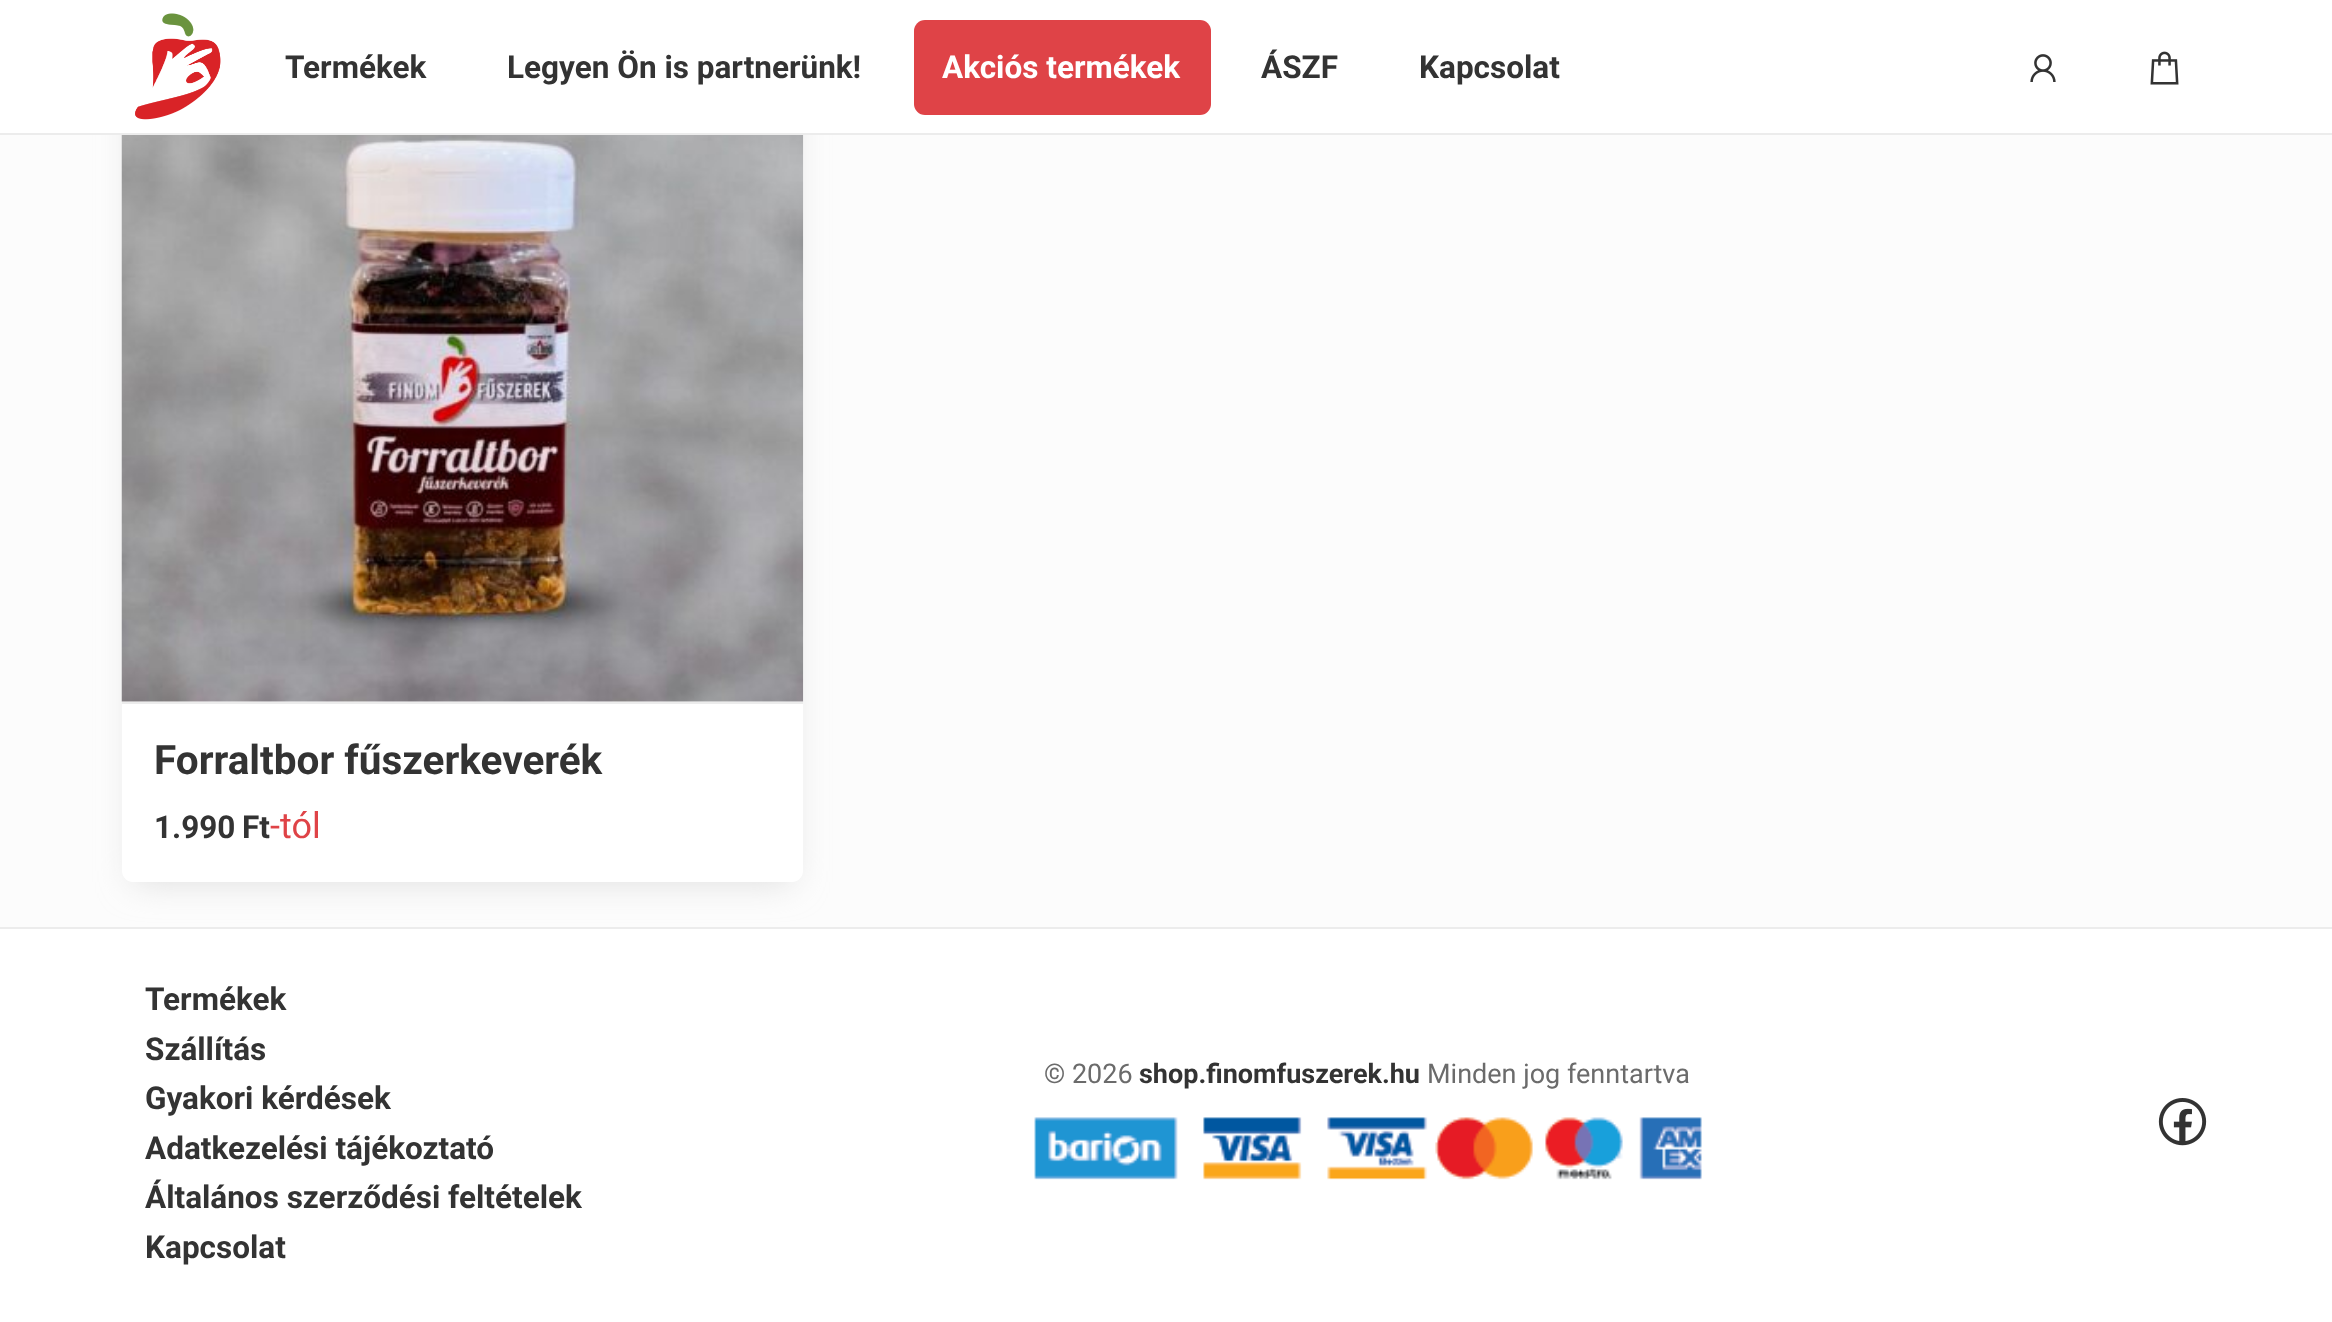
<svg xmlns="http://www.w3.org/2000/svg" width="2332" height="1322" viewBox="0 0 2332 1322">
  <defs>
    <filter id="blur1" x="-50%" y="-200%" width="200%" height="500%"><feGaussianBlur stdDeviation="17"/></filter>
  </defs>
  <rect width="100%" height="100%" fill="#fcfcfc"/>
  <rect x="0" y="929" width="2332" height="393" fill="#ffffff"/>
  <rect x="0" y="927" width="2332" height="2" fill="#ececec"/>
  <rect x="133" y="41" width="659" height="841" fill="#dddddd" filter="url(#blur1)"/>
  <rect x="122" y="18" width="681" height="864" rx="11" fill="#ffffff"/>
  <rect x="0" y="0" width="2332" height="133" fill="#ffffff"/>
  <rect x="0" y="133" width="2332" height="2" fill="#ececec"/>
  <image x="135" y="13" width="86" height="107" href="img1.png"/>
  <text x="285" y="78" font-family="Roboto" font-size="31.5" font-weight="bold" fill="#333333">Termékek</text>
  <text x="507" y="78" font-family="Roboto" font-size="31.5" font-weight="bold" fill="#333333">Legyen Ön is partnerünk!</text>
  <rect x="914" y="20" width="297" height="95" rx="11" fill="#df4347"/>
  <text x="942" y="78" font-family="Roboto" font-size="31.5" font-weight="bold" fill="#ffffff">Akciós termékek</text>
  <text x="1261" y="78" font-family="Roboto" font-size="31.5" font-weight="bold" fill="#333333">ÁSZF</text>
  <text x="1419" y="78" font-family="Roboto" font-size="31.5" font-weight="bold" fill="#333333">Kapcsolat</text>
  <image x="2030" y="54" width="26" height="28" href="img2.png"/>
  <image x="2150" y="51" width="29" height="34" href="img3.png"/>
  <image x="121" y="135" width="683" height="567" href="img4.png"/>
  <rect x="122" y="702" width="681" height="2" fill="#ececec"/>
  <text x="154" y="774" font-family="Roboto" font-size="40.5" font-weight="bold" fill="#333333">Forraltbor fűszerkeverék</text>
  <text x="154" y="838" font-family="Roboto" font-size="31.5" font-weight="bold" fill="#333333">1.990</text>
  <text x="242" y="838" font-family="Roboto" font-size="31.5" font-weight="bold" fill="#333333">Ft</text>
  <text x="270" y="838" font-family="Roboto" font-size="36" fill="#df4347">-tól</text>
  <text x="145" y="1010" font-family="Roboto" font-size="31.5" font-weight="bold" fill="#333333">Termékek</text>
  <text x="145" y="1060" font-family="Roboto" font-size="31.5" font-weight="bold" fill="#333333">Szállítás</text>
  <text x="145" y="1109" font-family="Roboto" font-size="31.5" font-weight="bold" fill="#333333">Gyakori kérdések</text>
  <text x="145" y="1159" font-family="Roboto" font-size="31.5" font-weight="bold" fill="#333333">Adatkezelési tájékoztató</text>
  <text x="145" y="1208" font-family="Roboto" font-size="31.5" font-weight="bold" fill="#333333">Általános szerződési feltételek</text>
  <text x="145" y="1258" font-family="Roboto" font-size="31.5" font-weight="bold" fill="#333333">Kapcsolat</text>
  <text x="1044" y="1083" font-family="Roboto" font-size="27" fill="#6b6b6b">© 2026</text>
  <text x="1139" y="1083" font-family="Roboto" font-size="27" font-weight="bold" fill="#333333">shop.finomfuszerek.hu</text>
  <text x="1427" y="1083" font-family="Roboto" font-size="27" fill="#6b6b6b">Minden jog fenntartva</text>
  <image x="1034" y="1117" width="668" height="63" href="img5.png"/>
  <image x="2158" y="1098" width="49" height="48" href="img6.png"/>
</svg>
